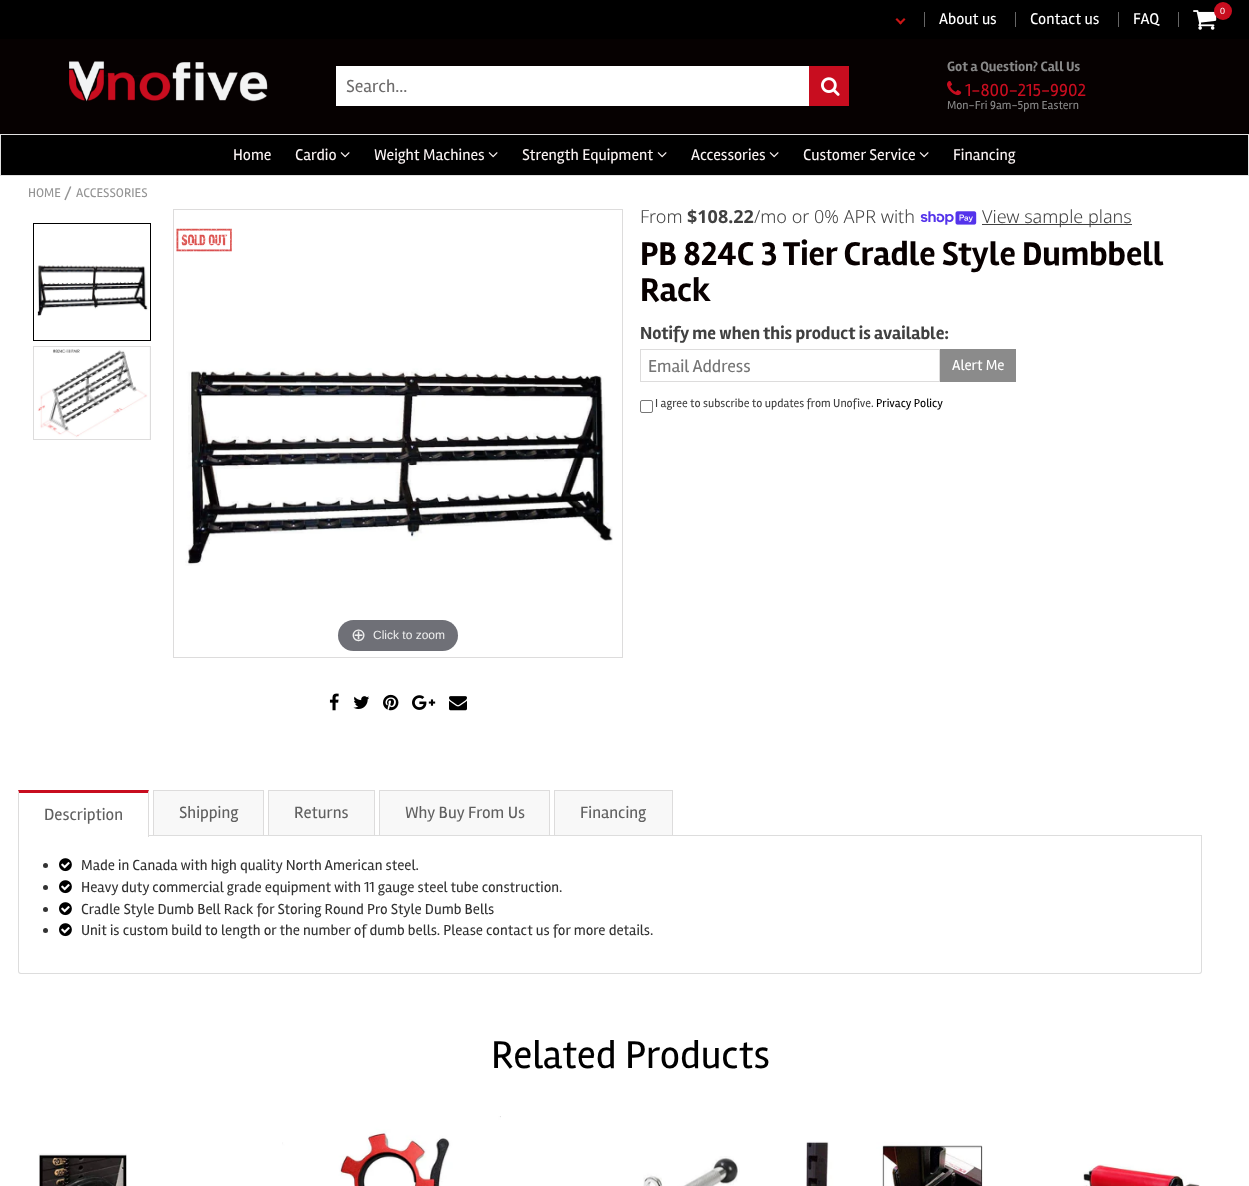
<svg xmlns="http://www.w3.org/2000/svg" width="1249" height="1186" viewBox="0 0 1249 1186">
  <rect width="100%" height="100%" fill="#ffffff"/>
  <rect x="0" y="0" width="1249" height="39" fill="#000000"/>
  <rect x="1178" y="12" width="1" height="15" fill="#666666"/>
  <image x="1193" y="10" width="24" height="20" href="img1.png"/>
  <circle cx="1223" cy="11" r="9" fill="#c80d1f"/>
  <text x="1220" y="14" font-family="Liberation Sans" font-size="9" fill="#ffffff">0</text>
  <path d="M904 18L905.5 19.5L900.5 24.5L899 23Z" fill="#ca1616"/>
  <path d="M897 18L902 23L900.5 24.5L895.5 19.5Z" fill="#ca1616"/>
  <rect x="924" y="12" width="1" height="15" fill="#666666"/>
  <text x="939" y="24" font-family="Rambla" font-size="16" fill="#ffffff">About us</text>
  <rect x="1015" y="12" width="1" height="15" fill="#666666"/>
  <text x="1030" y="24" font-family="Rambla" font-size="16" fill="#ffffff">Contact us</text>
  <rect x="1118" y="12" width="1" height="15" fill="#666666"/>
  <text x="1133" y="24" font-family="Rambla" font-size="16" fill="#ffffff">FAQ</text>
  <rect x="0" y="39" width="1249" height="95" fill="#060101"/>
  <image x="69" y="61" width="199" height="41" href="img2.png"/>
  <rect x="336" y="66" width="473" height="40" fill="#ffffff"/>
  <text x="346" y="92" font-family="Rambla" font-size="18" fill="#6e6c6c">Search...</text>
  <rect x="809" y="66" width="40" height="40" fill="#c80d1f"/>
  <image x="821" y="77" width="19" height="19" href="img3.png"/>
  <text x="947" y="71" font-family="Rambla" font-size="14" font-weight="bold" fill="#888888">Got a Question? Call Us</text>
  <image x="947" y="81" width="15" height="15" href="img4.png"/>
  <text x="965" y="96" font-family="Rambla" font-size="18" fill="#c80d1f">1-800-215-9902</text>
  <text x="947" y="109" font-family="Rambla" font-size="12" fill="#888888">Mon-Fri 9am-5pm Eastern</text>
  <rect x="0.5" y="134.5" width="1248" height="41" fill="#000000" stroke="#e1e1e1"/>
  <text x="233" y="160" font-family="Rambla" font-size="16" fill="#faf3f3">Home</text>
  <text x="295" y="160" font-family="Rambla" font-size="16" fill="#faf3f3">Cardio</text>
  <image x="340" y="152" width="10" height="6" href="img5.png"/>
  <text x="374" y="160" font-family="Rambla" font-size="16" fill="#faf3f3">Weight Machines</text>
  <image x="488" y="152" width="10" height="6" href="img5.png"/>
  <text x="522" y="160" font-family="Rambla" font-size="16" fill="#faf3f3">Strength Equipment</text>
  <image x="657" y="152" width="10" height="6" href="img5.png"/>
  <text x="691" y="160" font-family="Rambla" font-size="16" fill="#faf3f3">Accessories</text>
  <image x="769" y="152" width="10" height="6" href="img5.png"/>
  <text x="803" y="160" font-family="Rambla" font-size="16" fill="#faf3f3">Customer Service</text>
  <image x="919" y="152" width="10" height="6" href="img5.png"/>
  <text x="953" y="160" font-family="Rambla" font-size="16" fill="#faf3f3">Financing</text>
  <text x="28" y="197" font-family="Rambla" font-size="13" fill="#949494">HOME</text>
  <text x="64" y="199" font-family="Rambla" font-size="18" fill="#949494">/</text>
  <text x="76" y="197" font-family="Rambla" font-size="13" fill="#949494">ACCESSORIES</text>
  <text x="640" y="223" font-family="Noto Sans" font-size="18" font-weight="300" fill="#414141">From</text>
  <text x="687" y="223" font-family="Noto Sans" font-size="18" font-weight="bold" fill="#414141">$108.22</text>
  <text x="754" y="223" font-family="Noto Sans" font-size="18" font-weight="300" fill="#414141">/mo or 0% APR with</text>
  <image x="920" y="211" width="57" height="14" href="img6.png"/>
  <rect x="982" y="224" width="150" height="1" fill="#414141"/>
  <text x="982" y="223" font-family="Noto Sans" font-size="18" font-weight="300" fill="#414141">View sample plans</text>
  <text x="640" y="265" font-family="Rambla" font-size="34" font-weight="bold" fill="#080000">PB 824C 3 Tier Cradle Style Dumbbell</text>
  <text x="640" y="301" font-family="Rambla" font-size="34" font-weight="bold" fill="#080000">Rack</text>
  <text x="640" y="339" font-family="Rambla" font-size="18" font-weight="bold" fill="#414141">Notify me when this product is available:</text>
  <rect x="640.5" y="349.5" width="299" height="32" fill="none" stroke="#dddcdc"/>
  <text x="648" y="372" font-family="Rambla" font-size="18" fill="#757575">Email Address</text>
  <rect x="940" y="349" width="76" height="33" fill="#8b8b8b"/>
  <text x="952" y="370" font-family="Rambla" font-size="15" fill="#ffffff">Alert Me</text>
  <rect x="640.5" y="400.5" width="12" height="12" rx="1.5" fill="none" stroke="#767676"/>
  <text x="655" y="407" font-family="Rambla" font-size="12" fill="#414141">I agree to subscribe to updates from Unofive.</text>
  <text x="876" y="407" font-family="Rambla" font-size="12" fill="#000000">Privacy Policy</text>
  <rect x="33.5" y="223.5" width="117" height="117" fill="none" stroke="#000000"/>
  <image x="34" y="224" width="116" height="116" href="img7.png"/>
  <rect x="149" y="347" width="1" height="92" fill="#fafafa"/>
  <rect x="33.5" y="346.5" width="117" height="93" fill="none" stroke="#dddcdc"/>
  <image x="34" y="347" width="115" height="92" href="img8.png"/>
  <rect x="173.5" y="209.5" width="449" height="448" fill="none" stroke="#dddcdc"/>
  <image x="176" y="228" width="56" height="24" href="img9.png"/>
  <image x="185" y="368" width="428" height="198" href="img10.png"/>
  <rect x="338" y="620" width="120" height="31" rx="15.5" fill="#6f7077"/>
  <text x="351" y="641" font-family="DejaVu Sans" font-size="18" fill="#eeeeee">⊕</text>
  <text x="373" y="639" font-family="Liberation Sans" font-size="12" fill="#eeeeee">Click to zoom</text>
  <image x="329" y="693" width="10" height="18" href="img11.png"/>
  <image x="353" y="696" width="17" height="13" href="img12.png"/>
  <image x="383" y="694" width="16" height="17" href="img13.png"/>
  <image x="412" y="695" width="24" height="15" href="img14.png"/>
  <image x="449" y="696" width="18" height="15" href="img15.png"/>
  <rect x="149" y="835" width="1053" height="1" fill="#dddddd"/>
  <path d="M18 836H1202V971C1202 973 1201 974 1199 974H21C19 974 18 973 18 971ZM19 836H1201V971C1201 972 1200 973 1199 973H21C20 973 19 972 19 971Z" fill="#dddddd" fill-rule="evenodd"/>
  <rect x="18" y="836" width="1" height="1" fill="#ffffff"/>
  <path d="M18 790H149L148 793H19Z" fill="#c80d1f"/>
  <path d="M149 790V837H148V793Z" fill="#dddcdc"/>
  <path d="M18 837V790L19 793V837Z" fill="#dddcdc"/>
  <text x="44" y="820" font-family="Rambla" font-size="17" fill="#606060">Description</text>
  <rect x="154" y="791" width="109" height="44" fill="#f8f8f8"/>
  <rect x="153" y="790" width="111" height="1" fill="#dddcdc"/>
  <rect x="263" y="790" width="1" height="45" fill="#dddcdc"/>
  <rect x="153" y="790" width="1" height="45" fill="#dddcdc"/>
  <text x="179" y="818" font-family="Rambla" font-size="17" fill="#606060">Shipping</text>
  <rect x="269" y="791" width="105" height="44" fill="#f8f8f8"/>
  <rect x="268" y="790" width="107" height="1" fill="#dddcdc"/>
  <rect x="374" y="790" width="1" height="45" fill="#dddcdc"/>
  <rect x="268" y="790" width="1" height="45" fill="#dddcdc"/>
  <text x="294" y="818" font-family="Rambla" font-size="17" fill="#606060">Returns</text>
  <rect x="380" y="791" width="169" height="44" fill="#f8f8f8"/>
  <rect x="379" y="790" width="171" height="1" fill="#dddcdc"/>
  <rect x="549" y="790" width="1" height="45" fill="#dddcdc"/>
  <rect x="379" y="790" width="1" height="45" fill="#dddcdc"/>
  <text x="405" y="818" font-family="Rambla" font-size="17" fill="#606060">Why Buy From Us</text>
  <rect x="555" y="791" width="117" height="44" fill="#f8f8f8"/>
  <rect x="554" y="790" width="119" height="1" fill="#dddcdc"/>
  <rect x="672" y="790" width="1" height="45" fill="#dddcdc"/>
  <rect x="554" y="790" width="1" height="45" fill="#dddcdc"/>
  <text x="580" y="818" font-family="Rambla" font-size="17" fill="#606060">Financing</text>
  <circle cx="45.5" cy="865.5" r="2.5" fill="#333333"/>
  <image x="59" y="858" width="13" height="14" href="img16.png"/>
  <text x="81" y="870" font-family="Rambla" font-size="15" fill="#333333">Made in Canada with high quality North American steel.</text>
  <circle cx="45.5" cy="887.5" r="2.5" fill="#333333"/>
  <image x="59" y="880" width="13" height="14" href="img16.png"/>
  <text x="81" y="892" font-family="Rambla" font-size="15" fill="#333333">Heavy duty commercial grade equipment with 11 gauge steel tube construction.</text>
  <circle cx="45.5" cy="909.5" r="2.5" fill="#333333"/>
  <image x="59" y="902" width="13" height="14" href="img16.png"/>
  <text x="81" y="914" font-family="Rambla" font-size="15" fill="#333333">Cradle Style Dumb Bell Rack for Storing Round Pro Style Dumb Bells</text>
  <circle cx="45.5" cy="930.5" r="2.5" fill="#333333"/>
  <image x="59" y="923" width="13" height="14" href="img16.png"/>
  <text x="81" y="935" font-family="Rambla" font-size="15" fill="#333333">Unit is custom build to length or the number of dumb bells. Please contact us for more details.</text>
  <text x="491" y="1068" font-family="Rambla" font-size="40" fill="#000000">Related Products</text>
  <image x="38" y="1153" width="89" height="33" href="img17.png"/>
  <image x="282" y="1116" width="219" height="70" href="img18.png"/>
  <image x="643" y="1156" width="97" height="30" href="img19.png"/>
  <image x="806" y="1141" width="177" height="45" href="img20.png"/>
  <image x="1083" y="1164" width="117" height="22" href="img21.png"/>
</svg>
